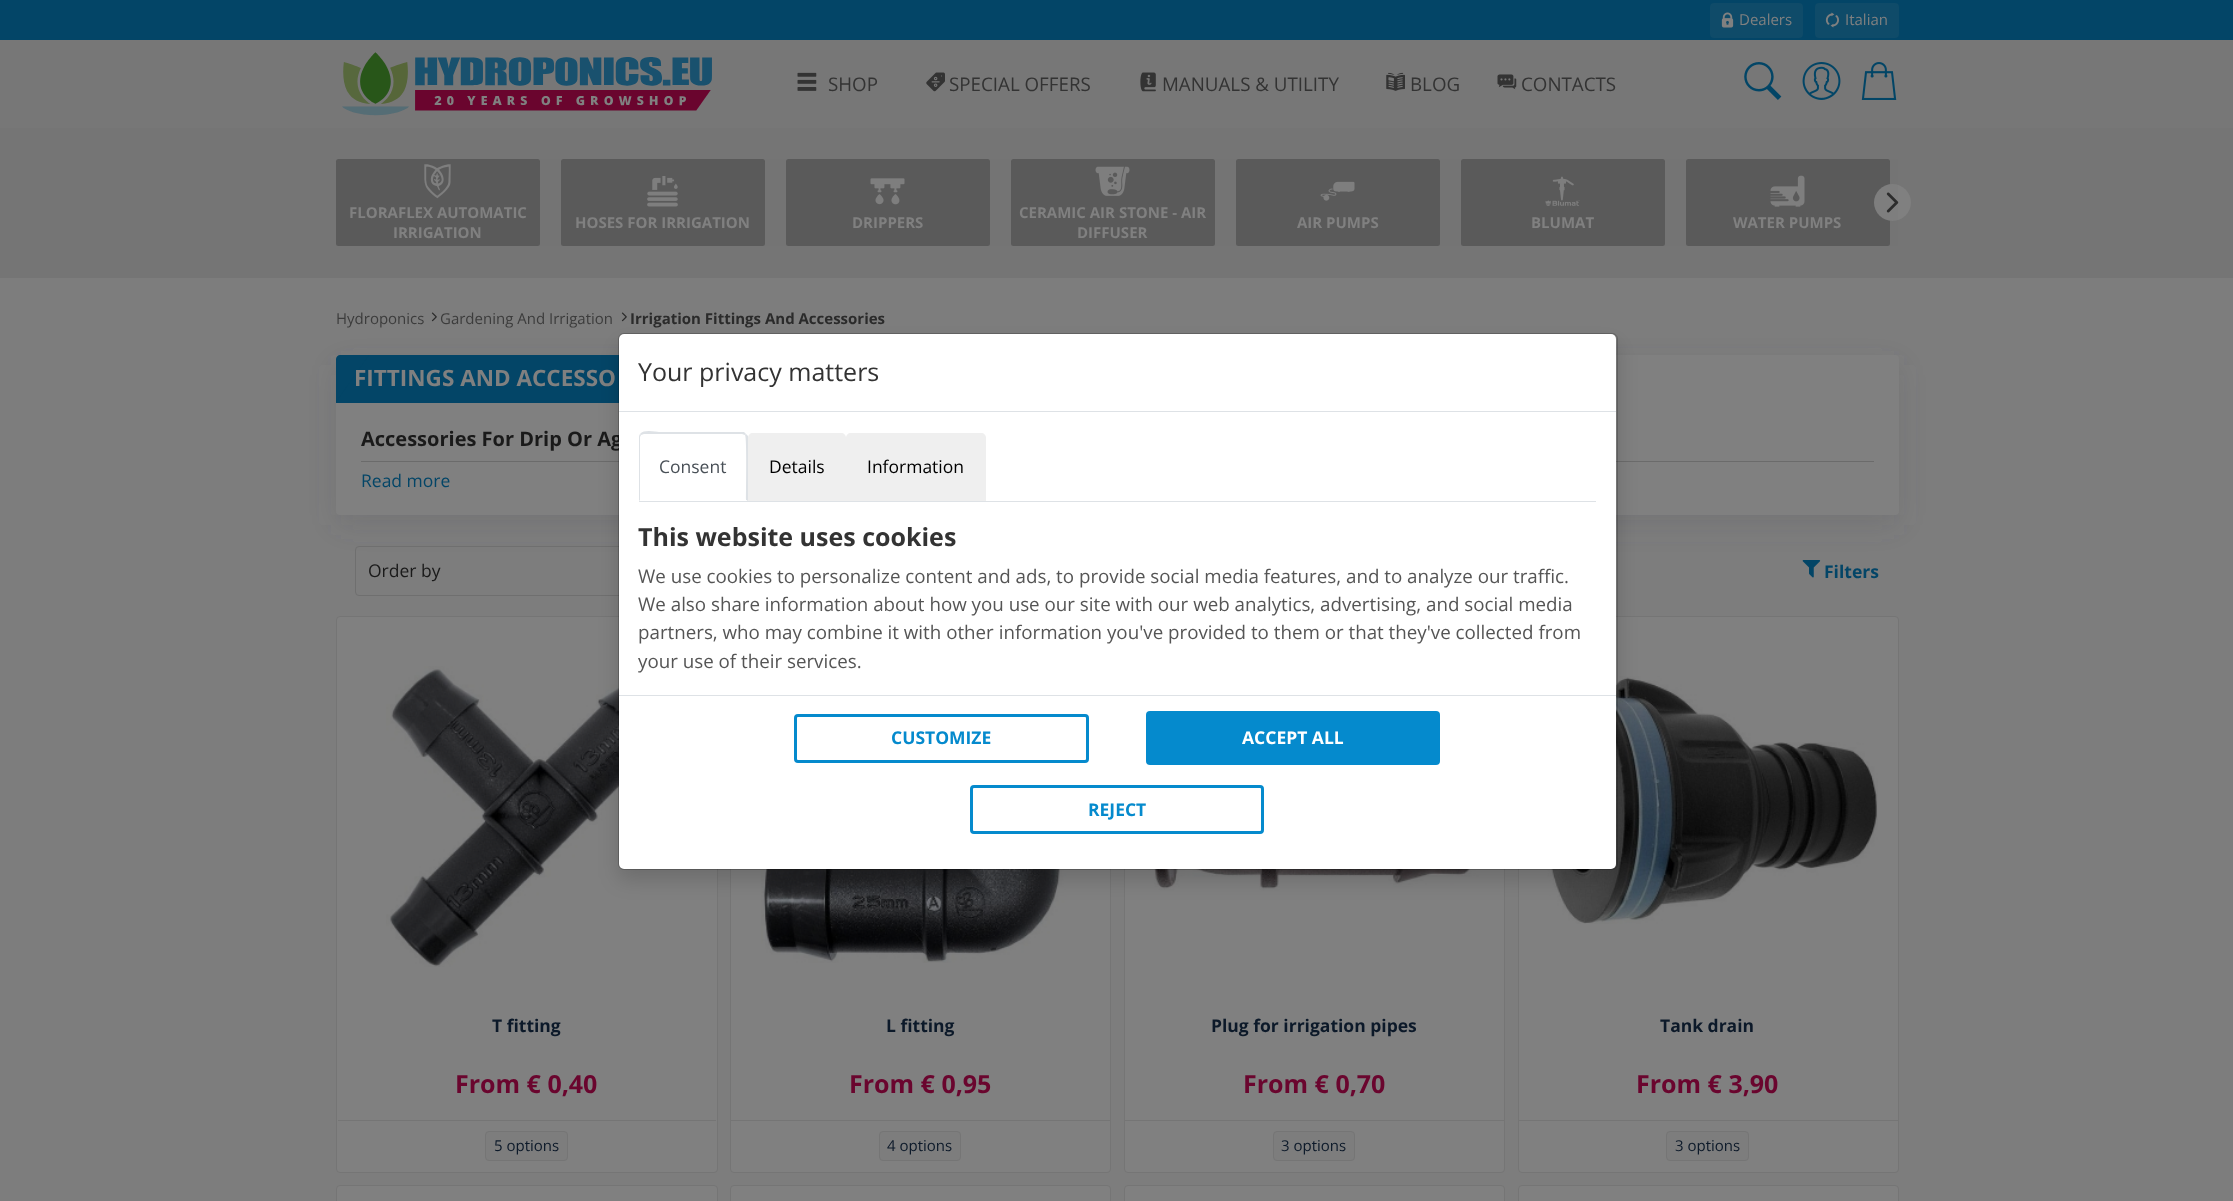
<svg xmlns="http://www.w3.org/2000/svg" width="2233" height="1201" viewBox="0 0 2233 1201">
  <defs>
    <filter id="blur1" x="-50%" y="-200%" width="200%" height="500%"><feGaussianBlur stdDeviation="15"/></filter>
    <filter id="blur2" x="-50%" y="-200%" width="200%" height="500%"><feGaussianBlur stdDeviation="10"/></filter>
  </defs>
  <rect width="100%" height="100%" fill="#7d7d7d"/>
  <rect x="0" y="0" width="2233" height="40" fill="#034567"/>
  <rect x="1710" y="3" width="93" height="35" rx="4" fill="#0f4b69"/>
  <image x="1721" y="12" width="13" height="16" href="img1.png"/>
  <text x="1739" y="25" font-family="Open Sans" font-size="15" fill="#808080">Dealers</text>
  <rect x="1815" y="3" width="84" height="35" rx="4" fill="#0f4b69"/>
  <image x="1825" y="12" width="14" height="16" href="img2.png"/>
  <text x="1845" y="25" font-family="Open Sans" font-size="15" fill="#808080">Italian</text>
  <rect x="0" y="40" width="2233" height="88" fill="#777777"/>
  <image x="342" y="52" width="370" height="64" href="img3.png"/>
  <image x="797" y="72" width="20" height="19" href="img4.png"/>
  <text x="828" y="91" font-family="Open Sans" font-size="18.75" fill="#333333">SHOP</text>
  <image x="926" y="72" width="19" height="20" href="img5.png"/>
  <text x="949" y="91" font-family="Open Sans" font-size="18.75" fill="#333333">SPECIAL OFFERS</text>
  <image x="1140" y="72" width="16" height="20" href="img6.png"/>
  <text x="1162" y="91" font-family="Open Sans" font-size="18.75" fill="#333333">MANUALS &amp; UTILITY</text>
  <image x="1386" y="72" width="19" height="19" href="img7.png"/>
  <text x="1410" y="91" font-family="Open Sans" font-size="18.75" fill="#333333">BLOG</text>
  <image x="1497" y="74" width="20" height="16" href="img8.png"/>
  <text x="1521" y="91" font-family="Open Sans" font-size="18.75" fill="#333333">CONTACTS</text>
  <image x="1744" y="62" width="38" height="38" href="img9.png"/>
  <image x="1802" y="62" width="39" height="38" href="img10.png"/>
  <image x="1861" y="62" width="36" height="38" href="img11.png"/>
  <rect x="0" y="128" width="2233" height="150" fill="#757575"/>
  <rect x="336" y="159" width="204" height="87" rx="2.5" fill="#575757"/>
  <image x="424" y="164" width="27" height="35" href="img12.png"/>
  <rect x="561" y="159" width="204" height="87" rx="2.5" fill="#575757"/>
  <image x="647" y="176" width="31" height="31" href="img13.png"/>
  <rect x="786" y="159" width="204" height="87" rx="2.5" fill="#575757"/>
  <image x="870" y="178" width="35" height="27" href="img14.png"/>
  <rect x="1011" y="159" width="204" height="87" rx="2.5" fill="#575757"/>
  <image x="1095" y="166" width="35" height="30" href="img15.png"/>
  <rect x="1236" y="159" width="204" height="87" rx="2.5" fill="#575757"/>
  <image x="1320" y="181" width="35" height="20" href="img16.png"/>
  <rect x="1461" y="159" width="204" height="87" rx="2.5" fill="#575757"/>
  <image x="1545" y="176" width="35" height="30" href="img17.png"/>
  <rect x="1686" y="159" width="204" height="87" rx="2.5" fill="#575757"/>
  <image x="1770" y="175" width="35" height="32" href="img18.png"/>
  <circle cx="1892.5" cy="202.5" r="18.5" fill="#808080"/>
  <image x="1886" y="192" width="13" height="21" href="img19.png"/>
  <rect x="336" y="159" width="1562" height="87" fill="#757575" fill-opacity="0.13"/>
  <text x="349" y="218" font-family="Open Sans" font-size="15" font-weight="bold" fill="#808080">FLORAFLEX AUTOMATIC</text>
  <text x="393" y="238" font-family="Open Sans" font-size="15" font-weight="bold" fill="#808080">IRRIGATION</text>
  <text x="575" y="228" font-family="Open Sans" font-size="15" font-weight="bold" fill="#808080">HOSES FOR IRRIGATION</text>
  <text x="852" y="228" font-family="Open Sans" font-size="15" font-weight="bold" fill="#808080">DRIPPERS</text>
  <text x="1019" y="218" font-family="Open Sans" font-size="15" font-weight="bold" fill="#808080">CERAMIC AIR STONE - AIR</text>
  <text x="1077" y="238" font-family="Open Sans" font-size="15" font-weight="bold" fill="#808080">DIFFUSER</text>
  <text x="1297" y="228" font-family="Open Sans" font-size="15" font-weight="bold" fill="#808080">AIR PUMPS</text>
  <text x="1531" y="228" font-family="Open Sans" font-size="15" font-weight="bold" fill="#808080">BLUMAT</text>
  <text x="1733" y="228" font-family="Open Sans" font-size="15" font-weight="bold" fill="#808080">WATER PUMPS</text>
  <text x="336" y="324" font-family="Open Sans" font-size="15" fill="#3c3c3c">Hydroponics</text>
  <image x="431" y="312" width="6" height="10" href="img20.png"/>
  <text x="440" y="324" font-family="Open Sans" font-size="15" fill="#3c3c3c">Gardening And Irrigation</text>
  <image x="621" y="312" width="6" height="10" href="img20.png"/>
  <text x="630" y="324" font-family="Open Sans" font-size="15" font-weight="bold" fill="#2b2b2b">Irrigation Fittings And Accessories</text>
  <rect x="336" y="365" width="1563" height="160" rx="4" fill="#4b4f53" fill-opacity="0.2" filter="url(#blur1)"/>
  <rect x="336" y="355" width="1563" height="160" rx="4" fill="#808080"/>
  <path d="M340 355H866V403H336V359C336 357 338 355 340 355Z" fill="#034567"/>
  <path d="M369 355H899L866 402H336Z" fill="#034567"/>
  <text x="354" y="386" font-family="Open Sans" font-size="22.5" font-weight="bold" fill="#808080">FITTINGS AND ACCESSO</text>
  <text x="361" y="446" font-family="Open Sans" font-size="20" font-weight="bold" fill="#1a1a1a">Accessories For Drip Or Ag</text>
  <rect x="361" y="461" width="1513" height="1" fill="#6b6b6b"/>
  <text x="361" y="487" font-family="Open Sans" font-size="17.5" fill="#034567">Read more</text>
  <rect x="355.5" y="546.5" width="370" height="49" rx="3.5" fill="none" stroke="#6f6f6f"/>
  <text x="368" y="577" font-family="Open Sans" font-size="17.5" fill="#1a1a1a">Order by</text>
  <image x="1802" y="560" width="19" height="18" href="img21.png"/>
  <text x="1824" y="578" font-family="Open Sans" font-size="17.5" font-weight="bold" fill="#034567">Filters</text>
  <rect x="336.5" y="616.5" width="381" height="556" rx="3.5" fill="#808080" stroke="#757575"/>
  <image x="386" y="666" width="302" height="301" href="img22.png"/>
  <text x="492" y="1032" font-family="Open Sans" font-size="17.5" font-weight="bold" fill="#0c1929">T fitting</text>
  <text x="455" y="1093" font-family="Open Sans" font-size="25" font-weight="bold" fill="#6a052e">From € 0,40</text>
  <rect x="338" y="1120" width="378" height="1" fill="#757575"/>
  <rect x="485.5" y="1131.5" width="82" height="29" rx="3.5" fill="#7d7d7d" stroke="#757575"/>
  <text x="494" y="1151" font-family="Open Sans" font-size="15" fill="#0c1929">5 options</text>
  <rect x="730.5" y="616.5" width="380" height="556" rx="3.5" fill="#808080" stroke="#757575"/>
  <image x="761" y="869" width="307" height="94" href="img23.png"/>
  <text x="886" y="1032" font-family="Open Sans" font-size="17.5" font-weight="bold" fill="#0c1929">L fitting</text>
  <text x="849" y="1093" font-family="Open Sans" font-size="25" font-weight="bold" fill="#6a052e">From € 0,95</text>
  <rect x="731" y="1120" width="379" height="1" fill="#757575"/>
  <rect x="879.5" y="1131.5" width="81" height="29" rx="3.5" fill="#7d7d7d" stroke="#757575"/>
  <text x="887" y="1151" font-family="Open Sans" font-size="15" fill="#0c1929">4 options</text>
  <rect x="1124.5" y="616.5" width="380" height="556" rx="3.5" fill="#808080" stroke="#757575"/>
  <image x="1147" y="869" width="334" height="22" href="img24.png"/>
  <text x="1211" y="1032" font-family="Open Sans" font-size="17.5" font-weight="bold" fill="#0c1929">Plug for irrigation pipes</text>
  <text x="1243" y="1093" font-family="Open Sans" font-size="25" font-weight="bold" fill="#6a052e">From € 0,70</text>
  <rect x="1125" y="1120" width="379" height="1" fill="#757575"/>
  <rect x="1273.5" y="1131.5" width="81" height="29" rx="3.5" fill="#7d7d7d" stroke="#757575"/>
  <text x="1281" y="1151" font-family="Open Sans" font-size="15" fill="#0c1929">3 options</text>
  <rect x="1518.5" y="616.5" width="380" height="556" rx="3.5" fill="#808080" stroke="#757575"/>
  <image x="1544" y="676" width="334" height="248" href="img25.png"/>
  <text x="1660" y="1032" font-family="Open Sans" font-size="17.5" font-weight="bold" fill="#0c1929">Tank drain</text>
  <text x="1636" y="1093" font-family="Open Sans" font-size="25" font-weight="bold" fill="#6a052e">From € 3,90</text>
  <rect x="1519" y="1120" width="379" height="1" fill="#757575"/>
  <rect x="1666.5" y="1131.5" width="82" height="29" rx="3.5" fill="#7d7d7d" stroke="#757575"/>
  <text x="1675" y="1151" font-family="Open Sans" font-size="15" fill="#0c1929">3 options</text>
  <rect x="336.5" y="1185.5" width="381" height="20" rx="3.5" fill="#808080" stroke="#757575"/>
  <rect x="730.5" y="1185.5" width="380" height="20" rx="3.5" fill="#808080" stroke="#757575"/>
  <rect x="1124.5" y="1185.5" width="380" height="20" rx="3.5" fill="#808080" stroke="#757575"/>
  <rect x="1518.5" y="1185.5" width="380" height="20" rx="3.5" fill="#808080" stroke="#757575"/>
  <rect x="618" y="343" width="1000" height="537" rx="6" fill="#000000" fill-opacity="0.15" filter="url(#blur2)"/>
  <rect x="619" y="334" width="997" height="535" rx="5" fill="#ffffff"/>
  <rect x="618.5" y="333.5" width="999" height="536" rx="5.5" fill="none" stroke="#000000" stroke-opacity="0.2"/>
  <rect x="619" y="411" width="997" height="1" fill="#dee2e6"/>
  <text x="638" y="381" font-family="Open Sans" font-size="25" fill="#333333">Your privacy matters</text>
  <rect x="639" y="501" width="957" height="1" fill="#dee2e6"/>
  <path d="M644 434L641 435L640 434C644 429 656 432 659 432H744L746 434L745 435L742 434Z" fill="#dee2e6"/>
  <path d="M748 501L746 500C746 492 747 437 745 435L746 434L748 436Z" fill="#dee2e6"/>
  <path d="M747 501H639L640 500H746Z" fill="#ffffff"/>
  <path d="M639 501L640 500V437L641 435L640 434C639 435 639 437 639 438Z" fill="#dee2e6"/>
  <text x="659" y="473" font-family="Open Sans" font-size="17.5" fill="#495057">Consent</text>
  <path d="M753 433H841C844 433 846 435 846 438V501H748V438C748 435 750 433 753 433Z" fill="#efefef"/>
  <text x="769" y="473" font-family="Open Sans" font-size="17.5" fill="#000000">Details</text>
  <path d="M851 433H981C984 433 986 435 986 438V501H846V438C846 435 848 433 851 433Z" fill="#efefef"/>
  <text x="867" y="473" font-family="Open Sans" font-size="17.5" fill="#000000">Information</text>
  <text x="638" y="546" font-family="Open Sans" font-size="25" font-weight="bold" fill="#333333">This website uses cookies</text>
  <text x="638" y="583" font-family="Open Sans" font-size="18.75" fill="#555555">We use cookies to personalize content and ads, to provide social media features, and to analyze our traffic.</text>
  <text x="638" y="611" font-family="Open Sans" font-size="18.75" fill="#555555">We also share information about how you use our site with our web analytics, advertising, and social media</text>
  <text x="638" y="639" font-family="Open Sans" font-size="18.75" fill="#555555">partners, who may combine it with other information you've provided to them or that they've collected from</text>
  <text x="638" y="668" font-family="Open Sans" font-size="18.75" fill="#555555">your use of their services.</text>
  <rect x="619" y="695" width="997" height="1" fill="#dee2e6"/>
  <rect x="795.5" y="715.5" width="292" height="46" rx="2.5" fill="none" stroke="#058acd" stroke-width="3"/>
  <text x="891" y="744" font-family="Open Sans" font-size="17.5" font-weight="bold" fill="#058acd">CUSTOMIZE</text>
  <rect x="1146" y="711" width="294" height="54" rx="4" fill="#058acd"/>
  <text x="1242" y="744" font-family="Open Sans" font-size="17.5" font-weight="bold" fill="#ffffff">ACCEPT ALL</text>
  <rect x="971.5" y="786.5" width="291" height="46" rx="2.5" fill="none" stroke="#058acd" stroke-width="3"/>
  <text x="1088" y="816" font-family="Open Sans" font-size="17.5" font-weight="bold" fill="#058acd">REJECT</text>
</svg>
